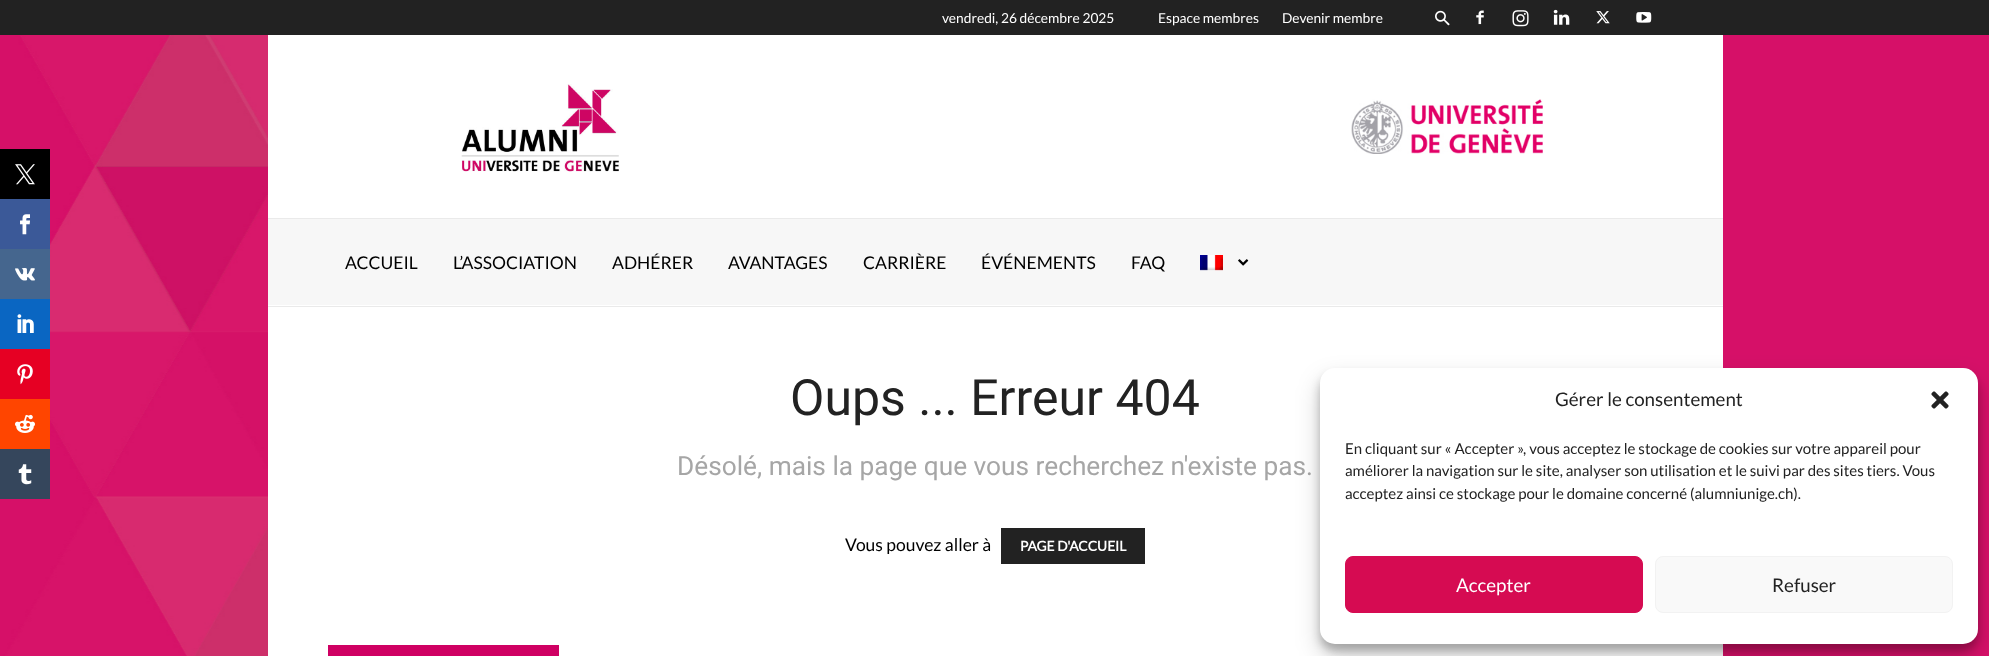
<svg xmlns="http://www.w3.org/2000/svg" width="1989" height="656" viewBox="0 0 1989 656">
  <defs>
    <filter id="blur1" x="-50%" y="-200%" width="200%" height="500%"><feGaussianBlur stdDeviation="4"/></filter>
    <filter id="blur2" x="-50%" y="-200%" width="200%" height="500%"><feGaussianBlur stdDeviation="12.5"/></filter>
  </defs>
  <rect width="100%" height="100%" fill="#ffffff"/>
  <rect x="0" y="0" width="1989" height="35" fill="#222222"/>
  <text x="942" y="23" font-family="Lato" font-size="13.75" fill="#ffffff">vendredi, 26 décembre 2025</text>
  <text x="1158" y="23" font-family="Lato" font-size="13.75" fill="#ffffff">Espace membres</text>
  <text x="1282" y="23" font-family="Lato" font-size="13.75" fill="#ffffff">Devenir membre</text>
  <image x="1435" y="10" width="15" height="16" href="img1.png"/>
  <image x="1476" y="10" width="8" height="15" href="img2.png"/>
  <image x="1512" y="10" width="17" height="17" href="img3.png"/>
  <image x="1553" y="9" width="17" height="16" href="img4.png"/>
  <image x="1596" y="11" width="14" height="13" href="img5.png"/>
  <image x="1636" y="12" width="16" height="11" href="img6.png"/>
  <image x="0" y="35" width="1989" height="621" href="img11.png"/>
  <rect x="268" y="35" width="1455" height="183" fill="#ffffff"/>
  <image x="461" y="84" width="158" height="88" href="img7.png"/>
  <image x="1351" y="99" width="192" height="55" href="img8.png"/>
  <rect x="268" y="219" width="1455" height="86" fill="#f7f7f7"/>
  <rect x="268" y="218" width="1455" height="1" fill="#eaeaea"/>
  <rect x="268" y="305" width="1455" height="351" fill="#ffffff"/>
  <rect x="268" y="306" width="1455" height="1" fill="#eaeaea"/>
  <text x="345" y="269" font-family="Lato" font-size="17.5" fill="#000000">ACCUEIL</text>
  <text x="453" y="269" font-family="Lato" font-size="17.5" fill="#000000">L’ASSOCIATION</text>
  <text x="612" y="269" font-family="Lato" font-size="17.5" fill="#000000">ADHÉRER</text>
  <text x="728" y="269" font-family="Lato" font-size="17.5" fill="#000000">AVANTAGES</text>
  <text x="863" y="269" font-family="Lato" font-size="17.5" fill="#000000">CARRIÈRE</text>
  <text x="981" y="269" font-family="Lato" font-size="17.5" fill="#000000">ÉVÉNEMENTS</text>
  <text x="1131" y="269" font-family="Lato" font-size="17.5" fill="#000000">FAQ</text>
  <image x="1200" y="255" width="23" height="16" href="img9.png"/>
  <image x="1238" y="259" width="11" height="7" href="img10.png"/>
  <text x="790" y="415" font-family="Roboto" font-size="50" fill="#222222">Oups ... Erreur 404</text>
  <text x="677" y="475" font-family="Roboto" font-size="26.25" fill="#a6a6a6">Désolé, mais la page que vous recherchez n'existe pas.</text>
  <text x="845" y="551" font-family="Lato" font-size="17.5" fill="#000000">Vous pouvez aller à</text>
  <rect x="1001" y="528" width="144" height="36" fill="#222222"/>
  <text x="1020" y="551" font-family="Lato" font-size="13.75" font-weight="bold" fill="#ffffff">PAGE D'ACCUEIL</text>
  <rect x="328" y="645" width="231" height="11" fill="#cf0063"/>
  <rect x="0" y="149" width="50" height="50" fill="#000000"/>
  <image x="15" y="164" width="20" height="21" href="img12.png"/>
  <rect x="0" y="199" width="50" height="50" fill="#3b5998"/>
  <image x="20" y="214" width="10" height="21" href="img13.png"/>
  <rect x="0" y="249" width="50" height="50" fill="#45668e"/>
  <image x="15" y="268" width="20" height="13" href="img14.png"/>
  <rect x="0" y="299" width="50" height="50" fill="#0a66c2"/>
  <image x="17" y="314" width="17" height="19" href="img15.png"/>
  <rect x="0" y="349" width="50" height="50" fill="#e60023"/>
  <image x="17" y="364" width="16" height="21" href="img16.png"/>
  <rect x="0" y="399" width="50" height="50" fill="#ff4500"/>
  <image x="15" y="414" width="20" height="19" href="img17.png"/>
  <rect x="0" y="449" width="50" height="50" fill="#35465c"/>
  <image x="18" y="464" width="14" height="21" href="img18.png"/>
  <rect x="1320" y="375" width="658" height="276" rx="15" fill="#000000" fill-opacity="0.23" filter="url(#blur1)"/>
  <rect x="1320" y="380" width="658" height="276" rx="15" fill="#000000" fill-opacity="0.19" filter="url(#blur2)"/>
  <rect x="1320" y="368" width="658" height="276" rx="15" fill="#ffffff"/>
  <text x="1555" y="406" font-family="Lato" font-size="18.75" fill="#222222">Gérer le consentement</text>
  <image x="1931" y="391" width="18" height="18" href="img19.png"/>
  <text x="1345" y="454" font-family="Lato" font-size="15" fill="#222222">En cliquant sur « Accepter », vous acceptez le stockage de cookies sur votre appareil pour</text>
  <text x="1345" y="476" font-family="Lato" font-size="15" fill="#222222">améliorer la navigation sur le site, analyser son utilisation et le suivi par des sites tiers. Vous</text>
  <text x="1345" y="499" font-family="Lato" font-size="15" fill="#222222">acceptez ainsi ce stockage pour le domaine concerné (alumniunige.ch).</text>
  <rect x="1345.5" y="556.5" width="297" height="56" rx="7.5" fill="#d60b52" stroke="#d50b51"/>
  <text x="1456" y="592" font-family="Lato" font-size="18.75" fill="#ffffff">Accepter</text>
  <rect x="1655.5" y="556.5" width="297" height="56" rx="7.5" fill="#f9f9f9" stroke="#f2f2f2"/>
  <text x="1772" y="592" font-family="Lato" font-size="18.75" fill="#222222">Refuser</text>
</svg>
